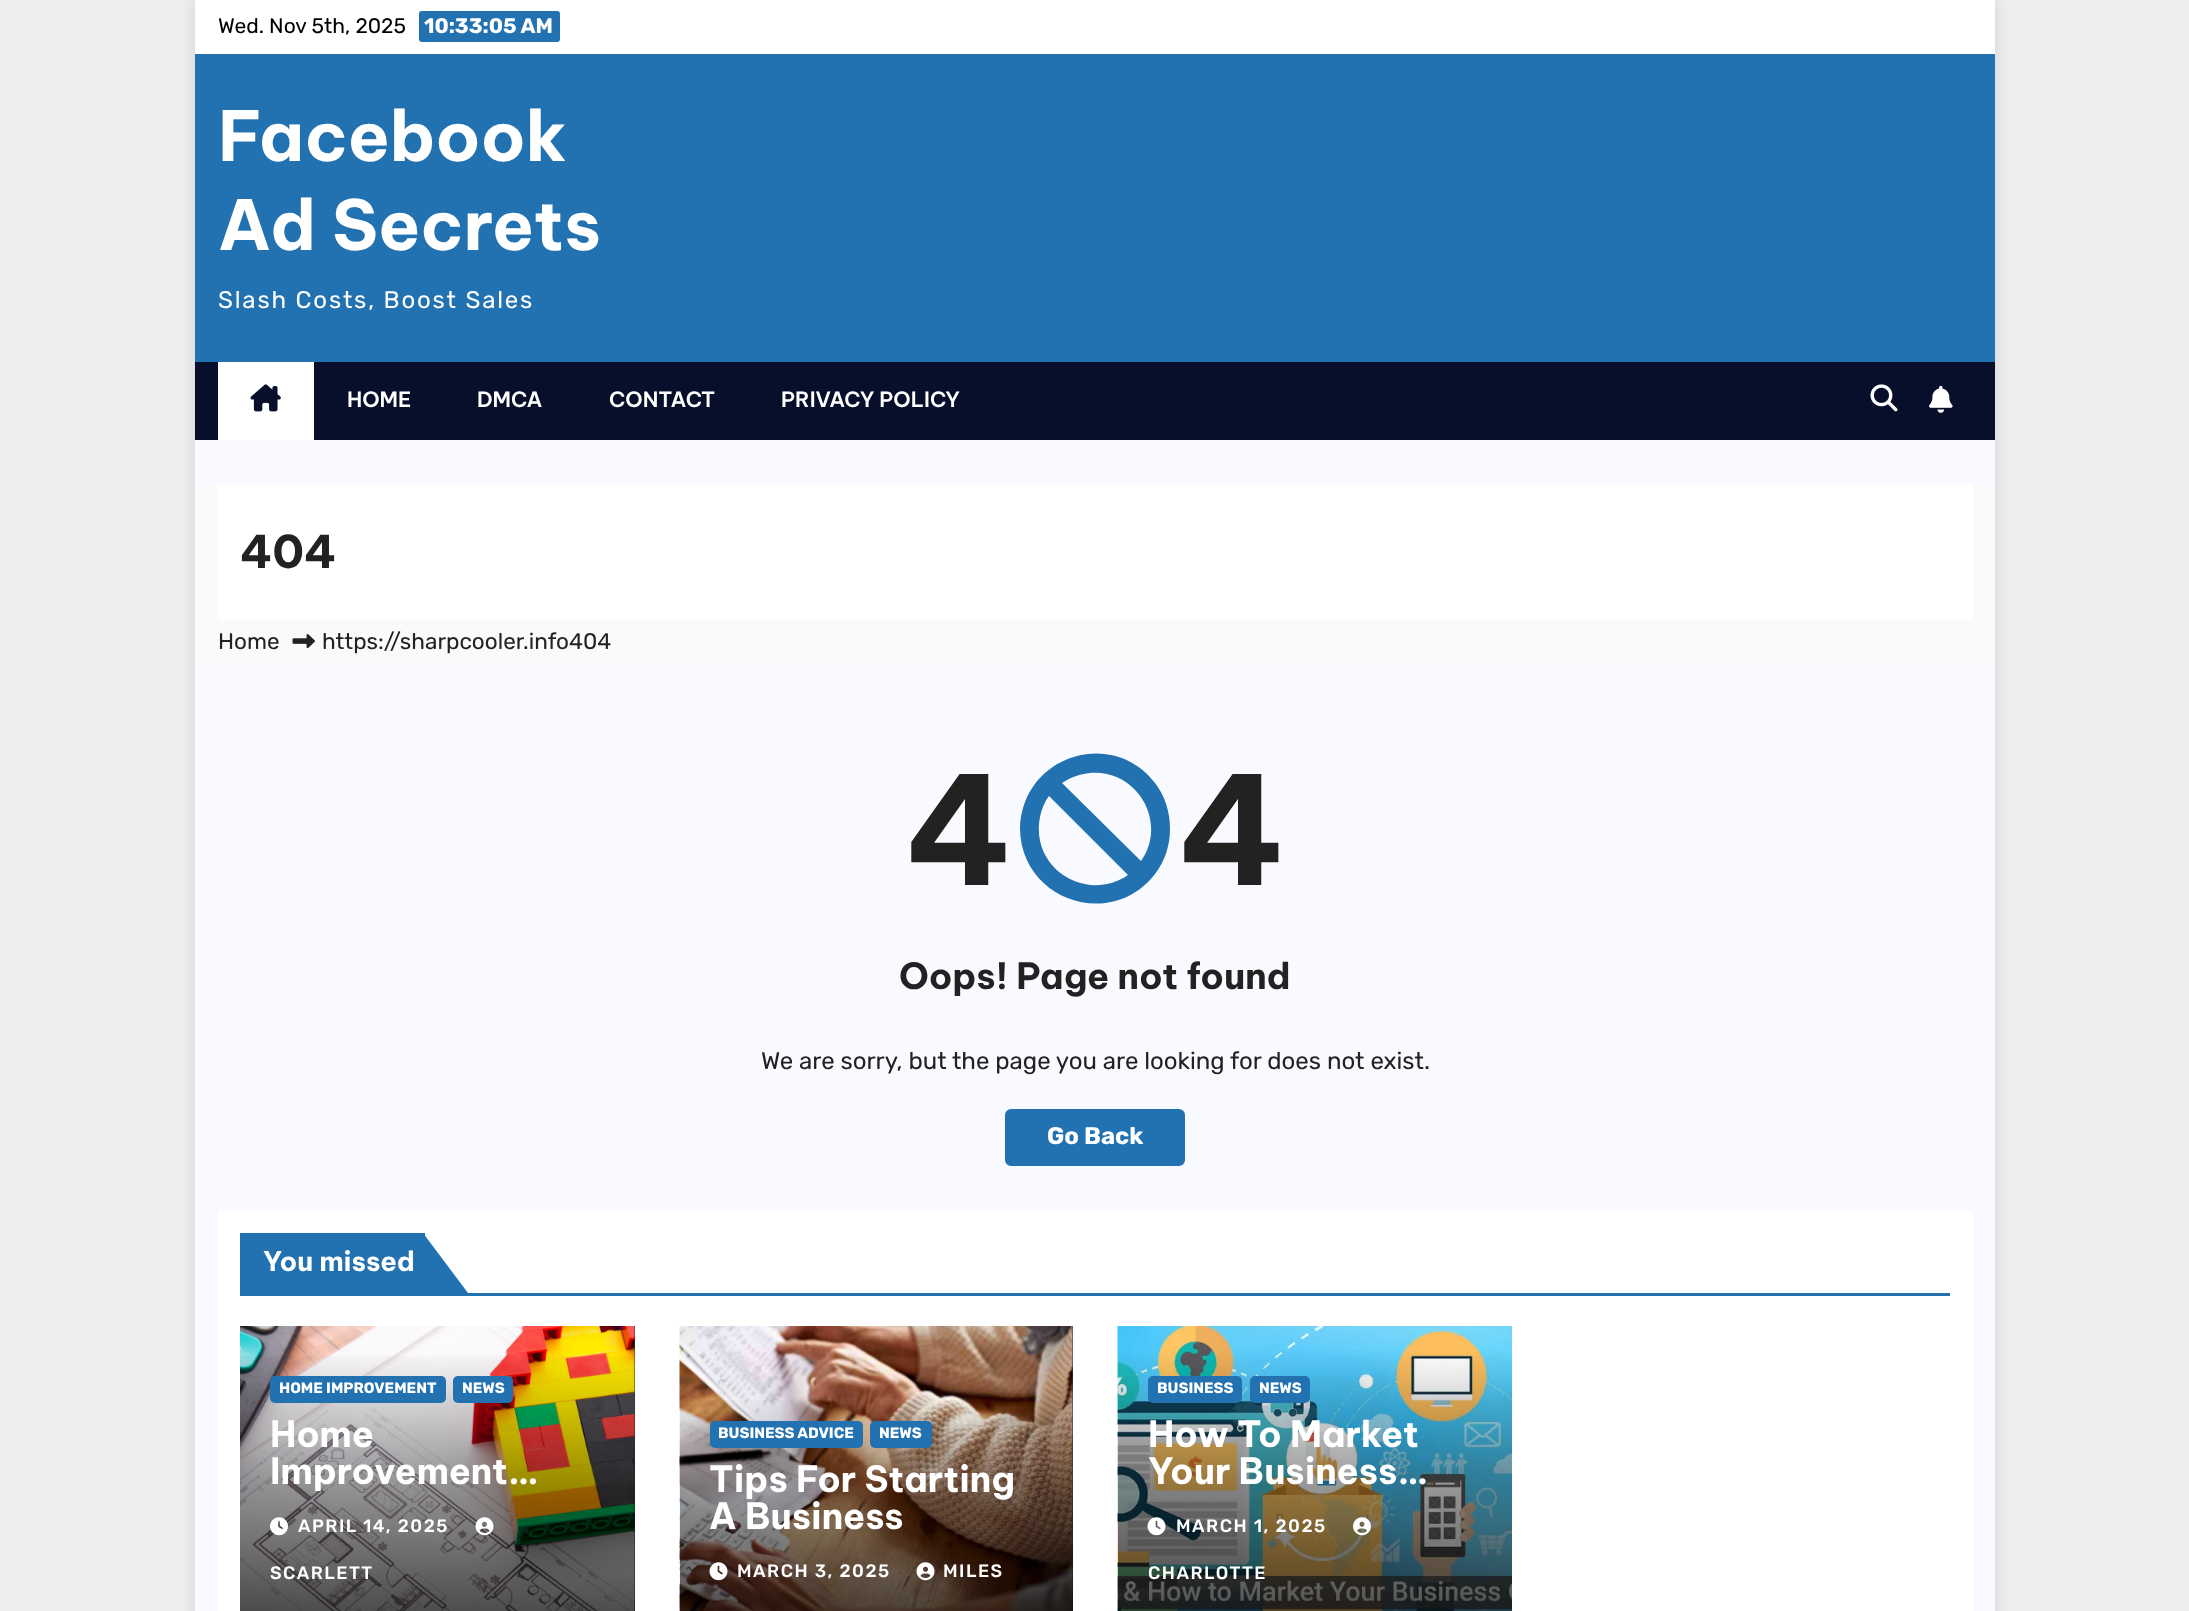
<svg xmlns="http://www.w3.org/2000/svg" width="2189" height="1611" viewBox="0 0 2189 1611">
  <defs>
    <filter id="blur1" x="-50%" y="-200%" width="200%" height="500%"><feGaussianBlur stdDeviation="7.5"/></filter>
    <linearGradient id="g1" gradientUnits="userSpaceOnUse" x1="437" y1="1349" x2="437" y2="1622"><stop offset="0" stop-color="#000000" stop-opacity="0"/><stop offset="0.5" stop-color="#000000" stop-opacity="0.4"/><stop offset="1" stop-color="#000000" stop-opacity="0.7"/></linearGradient>
    <linearGradient id="g2" gradientUnits="userSpaceOnUse" x1="876" y1="1394" x2="876" y2="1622"><stop offset="0" stop-color="#000000" stop-opacity="0"/><stop offset="0.5" stop-color="#000000" stop-opacity="0.4"/><stop offset="1" stop-color="#000000" stop-opacity="0.7"/></linearGradient>
  </defs>
  <rect width="100%" height="100%" fill="#eeeeee"/>
  <rect x="195" y="0" width="1800" height="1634" fill="#000000" fill-opacity="0.12" filter="url(#blur1)"/>
  <rect x="195" y="440" width="1800" height="1171" fill="#f9faff"/>
  <rect x="195" y="0" width="1800" height="54" fill="#ffffff"/>
  <text x="218" y="33" font-family="Rubik" font-size="21" fill="#000000">Wed. Nov 5th, 2025</text>
  <rect x="419" y="11" width="141" height="31" rx="3" fill="#2271b1"/>
  <text x="424" y="33" font-family="Rubik" font-size="21" font-weight="bold" fill="#ffffff">10:33:05 AM</text>
  <rect x="195" y="54" width="1800" height="308" fill="#2271b1"/>
  <text x="218" y="161" font-family="Be Vietnam Pro" font-size="69" font-weight="bold" fill="#ffffff">Facebook</text>
  <text x="218" y="250" font-family="Be Vietnam Pro" font-size="69" font-weight="bold" fill="#ffffff">Ad Secrets</text>
  <text x="218" y="308" font-family="Rubik" font-size="24" letter-spacing="1.8" fill="#ffffff">Slash Costs, Boost Sales</text>
  <rect x="195" y="362" width="1800" height="78" fill="#070f2b"/>
  <rect x="218" y="362" width="96" height="78" fill="#ffffff"/>
  <image x="250" y="384" width="31" height="28" href="img1.png"/>
  <text x="347" y="407" font-family="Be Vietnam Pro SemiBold" font-size="21" font-weight="600" fill="#ffffff">HOME</text>
  <text x="477" y="407" font-family="Be Vietnam Pro SemiBold" font-size="21" font-weight="600" fill="#ffffff">DMCA</text>
  <text x="609" y="407" font-family="Be Vietnam Pro SemiBold" font-size="21" font-weight="600" fill="#ffffff">CONTACT</text>
  <text x="781" y="407" font-family="Be Vietnam Pro SemiBold" font-size="21" font-weight="600" fill="#ffffff">PRIVACY POLICY</text>
  <image x="1870" y="384" width="28" height="28" href="img2.png"/>
  <image x="1929" y="385" width="24" height="28" href="img3.png"/>
  <rect x="195" y="485" width="1800" height="180" fill="#fafafa"/>
  <rect x="218" y="485" width="1755" height="135" fill="#ffffff"/>
  <text x="240" y="568" font-family="Be Vietnam Pro" font-size="45" font-weight="bold" fill="#222222">404</text>
  <text x="218" y="649" font-family="Rubik" font-size="22.5" fill="#222222">Home</text>
  <image x="292" y="634" width="23" height="14" href="img4.png"/>
  <text x="322" y="649" font-family="Rubik" font-size="22.5" fill="#222222">https://sharpcooler.info404</text>
  <text x="905" y="885" font-family="Be Vietnam Pro" font-size="150" font-weight="bold" fill="#222222">4</text>
  <path d="M1128 875L1049 796C1043 804 1040 814 1039 824C1035 872 1089 902 1128 875ZM1141 861C1168 823 1138 769 1090 773C1080 774 1071 777 1062 783ZM1020 829C1021 757 1111 726 1155 783C1165 796 1170 812 1170 829C1170 845 1165 861 1155 874C1111 931 1021 900 1020 829Z" fill="#2271b1"/>
  <text x="1178" y="885" font-family="Be Vietnam Pro" font-size="150" font-weight="bold" fill="#222222">4</text>
  <text x="899" y="989" font-family="Be Vietnam Pro" font-size="36" font-weight="bold" fill="#222222">Oops! Page not found</text>
  <text x="761" y="1069" font-family="Rubik" font-size="24" fill="#222222">We are sorry, but the page you are looking for does not exist.</text>
  <rect x="1006.5" y="1110.5" width="177" height="54" rx="4.5" fill="#2271b1" stroke="#2271b1" stroke-width="3"/>
  <text x="1047" y="1144" font-family="Rubik" font-size="24" font-weight="bold" fill="#ffffff">Go Back</text>
  <rect x="218" y="1211" width="1755" height="400" fill="#ffffff"/>
  <rect x="240" y="1293" width="1710" height="3" fill="#2271b1"/>
  <rect x="240" y="1233" width="185" height="60" fill="#2271b1"/>
  <text x="263" y="1271" font-family="Be Vietnam Pro" font-size="27" font-weight="bold" fill="#ffffff">You missed</text>
  <path d="M423 1293V1233L468 1293Z" fill="#2271b1"/>
  <rect x="634" y="1326" width="1" height="285" fill="#333333"/>
  <image x="240" y="1326" width="395" height="285" href="img5.png"/>
  <rect x="240" y="1356" width="395" height="255" fill="url(#g1)"/>
  <rect x="270" y="1376" width="176" height="27" rx="5" fill="#2271b1"/>
  <text x="279" y="1393" font-family="Rubik" font-size="15" font-weight="bold" fill="#ffffff">HOME IMPROVEMENT</text>
  <rect x="453" y="1376" width="60" height="27" rx="5" fill="#2271b1"/>
  <text x="462" y="1393" font-family="Rubik" font-size="15" font-weight="bold" fill="#ffffff">NEWS</text>
  <text x="270" y="1447" font-family="Be Vietnam Pro" font-size="36" font-weight="bold" fill="#ffffff">Home</text>
  <text x="270" y="1484" font-family="Be Vietnam Pro" font-size="36" font-weight="bold" fill="#ffffff">Improvement…</text>
  <image x="270" y="1517" width="18" height="19" href="img6.png"/>
  <text x="298" y="1532" font-family="Rubik" font-size="18" font-weight="500" letter-spacing="1.5" fill="#ffffff">APRIL 14, 2025</text>
  <image x="475" y="1517" width="19" height="19" href="img7.png"/>
  <text x="270" y="1579" font-family="Rubik" font-size="18" font-weight="500" letter-spacing="1.5" fill="#ffffff">SCARLETT</text>
  <rect x="1072" y="1326" width="1" height="285" fill="#333333"/>
  <image x="679" y="1326" width="394" height="285" href="img8.png"/>
  <rect x="680" y="1400" width="393" height="211" fill="url(#g2)"/>
  <rect x="710" y="1421" width="153" height="27" rx="5" fill="#2271b1"/>
  <text x="718" y="1438" font-family="Rubik" font-size="15" font-weight="bold" fill="#ffffff">BUSINESS ADVICE</text>
  <rect x="870" y="1421" width="62" height="27" rx="5" fill="#2271b1"/>
  <text x="879" y="1438" font-family="Rubik" font-size="15" font-weight="bold" fill="#ffffff">NEWS</text>
  <text x="709" y="1492" font-family="Be Vietnam Pro" font-size="36" font-weight="bold" fill="#ffffff">Tips For Starting</text>
  <text x="709" y="1529" font-family="Be Vietnam Pro" font-size="36" font-weight="bold" fill="#ffffff">A Business</text>
  <image x="709" y="1562" width="19" height="19" href="img9.png"/>
  <text x="737" y="1577" font-family="Rubik" font-size="18" font-weight="500" letter-spacing="1.5" fill="#ffffff">MARCH 3, 2025</text>
  <image x="916" y="1562" width="19" height="19" href="img10.png"/>
  <text x="943" y="1577" font-family="Rubik" font-size="18" font-weight="500" letter-spacing="1.5" fill="#ffffff">MILES</text>
  <image x="1117" y="1326" width="395" height="285" href="img11.png"/>
  <rect x="1148" y="1376" width="94" height="27" rx="5" fill="#2271b1"/>
  <text x="1157" y="1393" font-family="Rubik" font-size="15" font-weight="bold" fill="#ffffff">BUSINESS</text>
  <rect x="1250" y="1376" width="60" height="27" rx="5" fill="#2271b1"/>
  <text x="1259" y="1393" font-family="Rubik" font-size="15" font-weight="bold" fill="#ffffff">NEWS</text>
  <text x="1148" y="1447" font-family="Be Vietnam Pro" font-size="36" font-weight="bold" fill="#ffffff">How To Market</text>
  <text x="1148" y="1484" font-family="Be Vietnam Pro" font-size="36" font-weight="bold" fill="#ffffff">Your Business…</text>
  <image x="1147" y="1517" width="19" height="19" href="img12.png"/>
  <text x="1176" y="1532" font-family="Rubik" font-size="18" font-weight="500" letter-spacing="1.5" fill="#ffffff">MARCH 1, 2025</text>
  <image x="1353" y="1517" width="18" height="19" href="img13.png"/>
  <text x="1148" y="1579" font-family="Rubik" font-size="18" font-weight="500" letter-spacing="1.5" fill="#ffffff">CHARLOTTE</text>
</svg>
